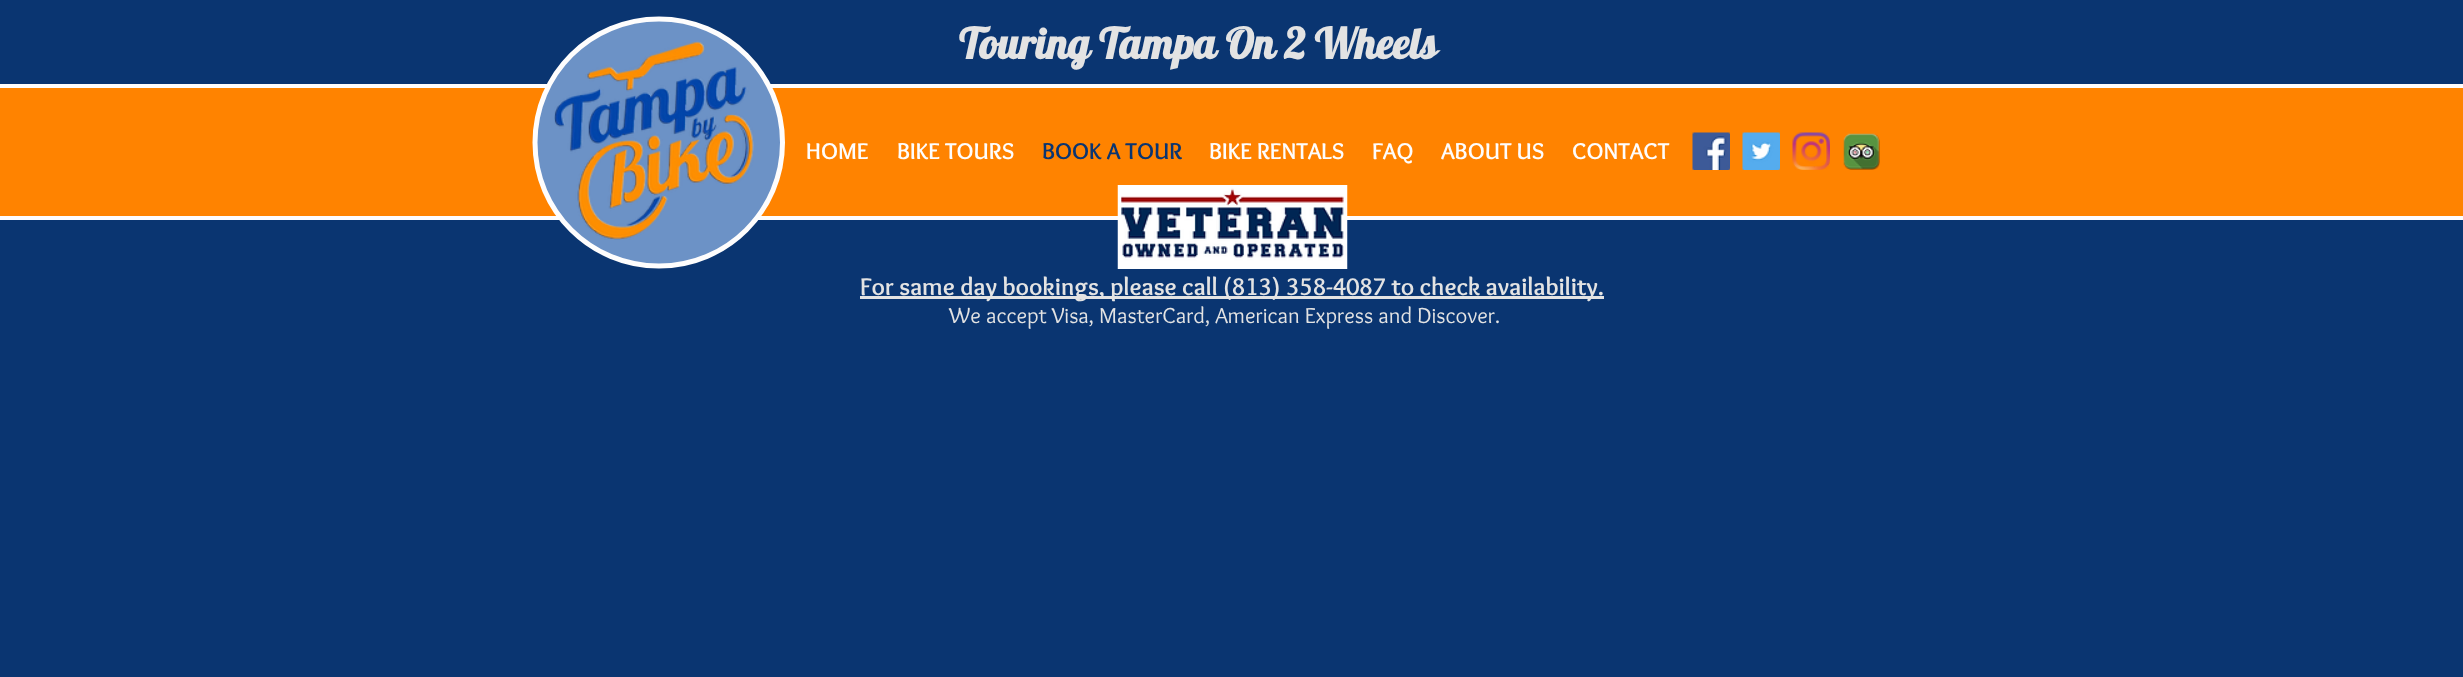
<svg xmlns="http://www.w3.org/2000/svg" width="2463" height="677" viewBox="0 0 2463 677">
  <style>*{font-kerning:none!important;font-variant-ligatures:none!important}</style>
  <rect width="100%" height="100%" fill="#0a3571"/>
  <rect x="0" y="88" width="2463" height="128" fill="#ff8300"/>
  <rect x="0" y="84" width="2463" height="4" fill="#fefdfd"/>
  <rect x="0" y="216" width="2463" height="4" fill="#fefdfd"/>
  <path d="M782 142C782 211 727 266 659 266C590 266 535 211 535 142C535 74 590 19 659 19C727 19 782 74 782 142Z" fill="#6c92c6"/>
  <path d="M782.5 142.5C782.5 211 727 266 659 266C590.5 266 535 211 535 142.5C535 74 590.5 19 659 19C727 19 782.5 74 782.5 142.5Z" fill="none" stroke="#fefdfd" stroke-width="5"/>
  <image x="554" y="41" width="200" height="199" href="img1.png"/>
  <text x="959" y="59" font-family="Lobster" font-size="42.5" font-weight="bold" fill="#e3e3e3">Touring Tampa On 2 Wheels</text>
  <text x="806" y="159" font-family="Overlock" font-size="23.75" font-weight="bold" fill="#fefdfd">HOME</text>
  <text x="897" y="159" font-family="Overlock" font-size="23.75" font-weight="bold" fill="#fefdfd">BIKE TOURS</text>
  <text x="1042" y="159" font-family="Overlock" font-size="23.75" font-weight="bold" fill="#0a3571">BOOK A TOUR</text>
  <text x="1209" y="159" font-family="Overlock" font-size="23.75" font-weight="bold" fill="#fefdfd">BIKE RENTALS</text>
  <text x="1372" y="159" font-family="Overlock" font-size="23.75" font-weight="bold" fill="#fefdfd">FAQ</text>
  <text x="1441" y="159" font-family="Overlock" font-size="23.75" font-weight="bold" fill="#fefdfd">ABOUT US</text>
  <text x="1572" y="159" font-family="Overlock" font-size="23.75" font-weight="bold" fill="#fefdfd">CONTACT</text>
  <image x="1692" y="132" width="38" height="38" href="img2.png"/>
  <image x="1742" y="132" width="38" height="38" href="img3.png"/>
  <image x="1792" y="132" width="38" height="38" href="img4.png"/>
  <image x="1843" y="133" width="37" height="37" href="img5.png"/>
  <image x="1117" y="185" width="231" height="84" href="img6.png"/>
  <rect x="860" y="296" width="744" height="3" fill="#e3e3e3"/>
  <text x="860" y="295" font-family="Overlock" font-size="25" font-weight="bold" fill="#e3e3e3">For same day bookings, please call (813) 358-4087 to check availability.</text>
  <text x="949" y="323" font-family="Overlock" font-size="22.5" fill="#e3e3e3">We accept Visa, MasterCard, American Express and Discover.</text>
</svg>
